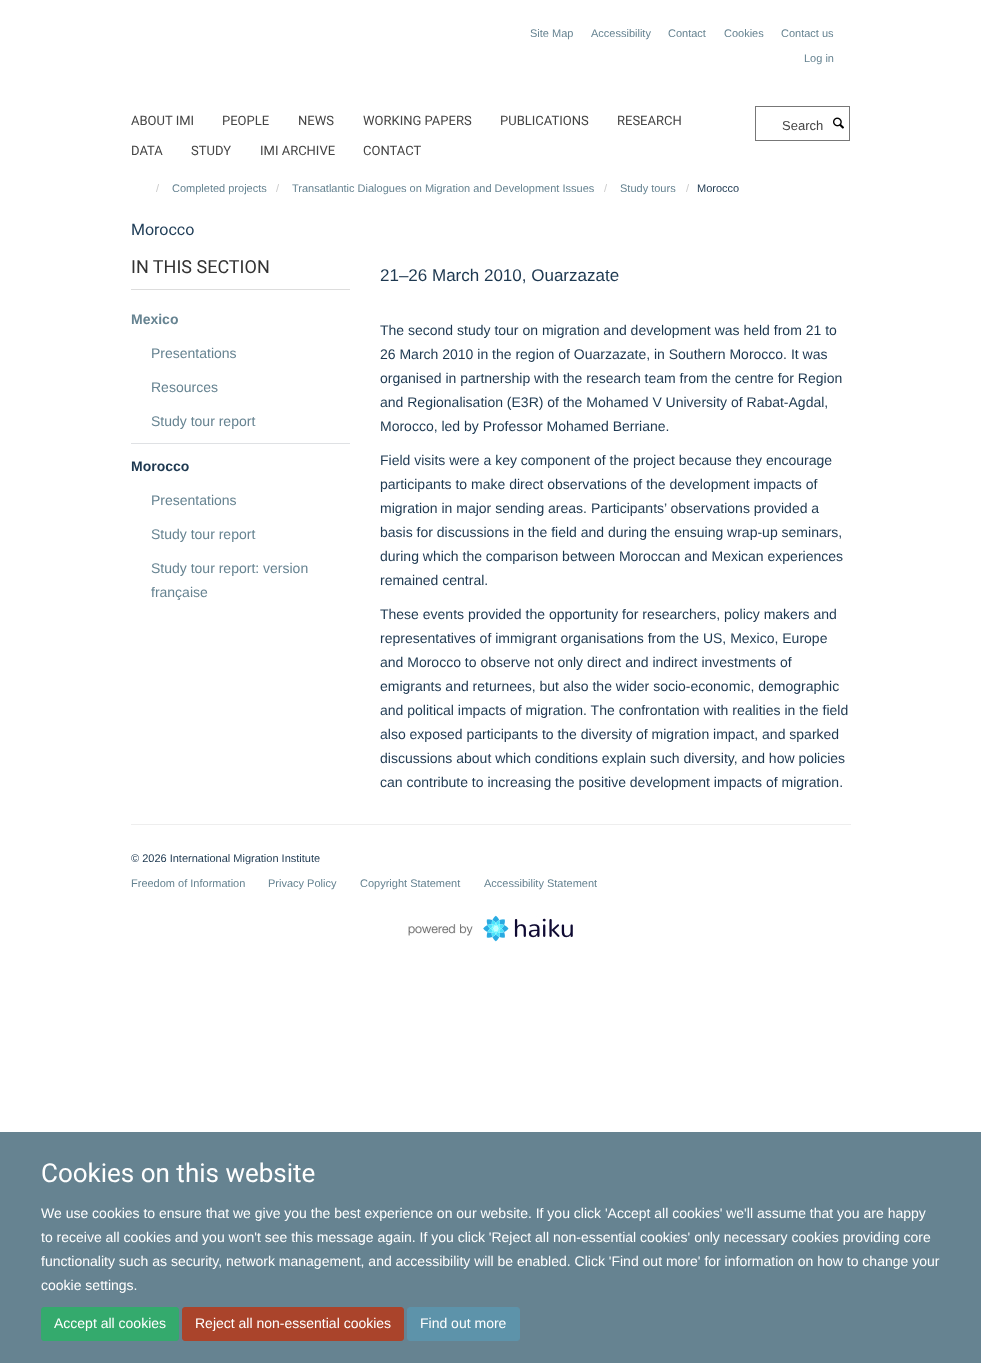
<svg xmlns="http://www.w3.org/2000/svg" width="981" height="1363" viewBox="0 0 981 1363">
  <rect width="100%" height="100%" fill="#ffffff"/>
  <text x="530" y="37" font-family="Liberation Sans" font-size="11" fill="#668391">Site Map</text>
  <text x="591" y="37" font-family="Liberation Sans" font-size="11" fill="#668391">Accessibility</text>
  <text x="668" y="37" font-family="Liberation Sans" font-size="11" fill="#668391">Contact</text>
  <text x="724" y="37" font-family="Liberation Sans" font-size="11" fill="#668391">Cookies</text>
  <text x="781" y="37" font-family="Liberation Sans" font-size="11" fill="#668391">Contact us</text>
  <text x="804" y="62" font-family="Liberation Sans" font-size="11" fill="#668391">Log in</text>
  <text x="131" y="125" font-family="Roboto" font-size="13" fill="#444444">ABOUT IMI</text>
  <text x="222" y="125" font-family="Roboto" font-size="13" fill="#444444">PEOPLE</text>
  <text x="298" y="125" font-family="Roboto" font-size="13" fill="#444444">NEWS</text>
  <text x="363" y="125" font-family="Roboto" font-size="13" fill="#444444">WORKING PAPERS</text>
  <text x="500" y="125" font-family="Roboto" font-size="13" fill="#444444">PUBLICATIONS</text>
  <text x="617" y="125" font-family="Roboto" font-size="13" fill="#444444">RESEARCH</text>
  <text x="131" y="155" font-family="Roboto" font-size="13" fill="#444444">DATA</text>
  <text x="191" y="155" font-family="Roboto" font-size="13" fill="#444444">STUDY</text>
  <text x="260" y="155" font-family="Roboto" font-size="13" fill="#444444">IMI ARCHIVE</text>
  <text x="363" y="155" font-family="Roboto" font-size="13" fill="#444444">CONTACT</text>
  <rect x="755.5" y="106.5" width="94" height="34" fill="none" stroke="#777777"/>
  <text x="782" y="130" font-family="Liberation Sans" font-size="13" fill="#444444">Search</text>
  <image x="833" y="117" width="11" height="12" href="img1.png"/>
  <text x="156" y="192" font-family="Liberation Sans" font-size="11" fill="#cccccc">/</text>
  <text x="172" y="192" font-family="Liberation Sans" font-size="11" fill="#668391">Completed projects</text>
  <text x="276" y="192" font-family="Liberation Sans" font-size="11" fill="#cccccc">/</text>
  <text x="292" y="192" font-family="Liberation Sans" font-size="11" fill="#668391">Transatlantic Dialogues on Migration and Development Issues</text>
  <text x="604" y="192" font-family="Liberation Sans" font-size="11" fill="#cccccc">/</text>
  <text x="620" y="192" font-family="Liberation Sans" font-size="11" fill="#668391">Study tours</text>
  <text x="686" y="192" font-family="Liberation Sans" font-size="11" fill="#cccccc">/</text>
  <text x="697" y="192" font-family="Liberation Sans" font-size="11" fill="#1d3850">Morocco</text>
  <text x="131" y="235" font-family="Roboto" font-size="16" fill="#203e58">Morocco</text>
  <rect x="131" y="289" width="219" height="1" fill="#dddddd"/>
  <text x="131" y="273" font-family="Roboto" font-size="18" fill="#333333">IN THIS SECTION</text>
  <rect x="131" y="443" width="219" height="1" fill="#dfe1e4"/>
  <text x="131" y="324" font-family="Liberation Sans" font-size="14" font-weight="bold" fill="#668391">Mexico</text>
  <text x="151" y="358" font-family="Liberation Sans" font-size="14" fill="#668391">Presentations</text>
  <text x="151" y="392" font-family="Liberation Sans" font-size="14" fill="#668391">Resources</text>
  <text x="151" y="426" font-family="Liberation Sans" font-size="14" fill="#668391">Study tour report</text>
  <text x="131" y="471" font-family="Liberation Sans" font-size="14" font-weight="bold" fill="#1d3850">Morocco</text>
  <text x="151" y="505" font-family="Liberation Sans" font-size="14" fill="#668391">Presentations</text>
  <text x="151" y="539" font-family="Liberation Sans" font-size="14" fill="#668391">Study tour report</text>
  <text x="151" y="573" font-family="Liberation Sans" font-size="14" fill="#668391">Study tour report: version</text>
  <text x="151" y="597" font-family="Liberation Sans" font-size="14" fill="#668391">française</text>
  <text x="380" y="281" font-family="Liberation Sans" font-size="17" fill="#1d3850">21–26 March 2010, Ouarzazate</text>
  <text x="380" y="335" font-family="Liberation Sans" font-size="14" fill="#1d3850">The second study tour on migration and development was held from 21 to</text>
  <text x="380" y="359" font-family="Liberation Sans" font-size="14" fill="#1d3850">26 March 2010 in the region of Ouarzazate, in Southern Morocco. It was</text>
  <text x="380" y="383" font-family="Liberation Sans" font-size="14" fill="#1d3850">organised in partnership with the research team from the centre for Region</text>
  <text x="380" y="407" font-family="Liberation Sans" font-size="14" fill="#1d3850">and Regionalisation (E3R) of the Mohamed V University of Rabat-Agdal,</text>
  <text x="380" y="431" font-family="Liberation Sans" font-size="14" fill="#1d3850">Morocco, led by Professor Mohamed Berriane.</text>
  <text x="380" y="465" font-family="Liberation Sans" font-size="14" fill="#1d3850">Field visits were a key component of the project because they encourage</text>
  <text x="380" y="489" font-family="Liberation Sans" font-size="14" fill="#1d3850">participants to make direct observations of the development impacts of</text>
  <text x="380" y="513" font-family="Liberation Sans" font-size="14" fill="#1d3850">migration in major sending areas. Participants’ observations provided a</text>
  <text x="380" y="537" font-family="Liberation Sans" font-size="14" fill="#1d3850">basis for discussions in the field and during the ensuing wrap-up seminars,</text>
  <text x="380" y="561" font-family="Liberation Sans" font-size="14" fill="#1d3850">during which the comparison between Moroccan and Mexican experiences</text>
  <text x="380" y="585" font-family="Liberation Sans" font-size="14" fill="#1d3850">remained central.</text>
  <text x="380" y="619" font-family="Liberation Sans" font-size="14" fill="#1d3850">These events provided the opportunity for researchers, policy makers and</text>
  <text x="380" y="643" font-family="Liberation Sans" font-size="14" fill="#1d3850">representatives of immigrant organisations from the US, Mexico, Europe</text>
  <text x="380" y="667" font-family="Liberation Sans" font-size="14" fill="#1d3850">and Morocco to observe not only direct and indirect investments of</text>
  <text x="380" y="691" font-family="Liberation Sans" font-size="14" fill="#1d3850">emigrants and returnees, but also the wider socio-economic, demographic</text>
  <text x="380" y="715" font-family="Liberation Sans" font-size="14" fill="#1d3850">and political impacts of migration. The confrontation with realities in the field</text>
  <text x="380" y="739" font-family="Liberation Sans" font-size="14" fill="#1d3850">also exposed participants to the diversity of migration impact, and sparked</text>
  <text x="380" y="763" font-family="Liberation Sans" font-size="14" fill="#1d3850">discussions about which conditions explain such diversity, and how policies</text>
  <text x="380" y="787" font-family="Liberation Sans" font-size="14" fill="#1d3850">can contribute to increasing the positive development impacts of migration.</text>
  <rect x="131" y="824" width="720" height="1" fill="#eeeeee"/>
  <text x="131" y="862" font-family="Liberation Sans" font-size="11" fill="#1d3850">© 2026 International Migration Institute</text>
  <text x="131" y="887" font-family="Liberation Sans" font-size="11" fill="#668391">Freedom of Information</text>
  <text x="268" y="887" font-family="Liberation Sans" font-size="11" fill="#668391">Privacy Policy</text>
  <text x="360" y="887" font-family="Liberation Sans" font-size="11" fill="#668391">Copyright Statement</text>
  <text x="484" y="887" font-family="Liberation Sans" font-size="11" fill="#668391">Accessibility Statement</text>
  <image x="408" y="915" width="165" height="27" href="img2.png"/>
  <rect x="0" y="1132" width="981" height="231" fill="#668391"/>
  <text x="41" y="1182" font-family="Roboto" font-size="26" fill="#ffffff">Cookies on this website</text>
  <text x="41" y="1218" font-family="Liberation Sans" font-size="14" fill="#ffffff">We use cookies to ensure that we give you the best experience on our website. If you click 'Accept all cookies' we'll assume that you are happy</text>
  <text x="41" y="1242" font-family="Liberation Sans" font-size="14" fill="#ffffff">to receive all cookies and you won't see this message again. If you click 'Reject all non-essential cookies' only necessary cookies providing core</text>
  <text x="41" y="1266" font-family="Liberation Sans" font-size="14" fill="#ffffff">functionality such as security, network management, and accessibility will be enabled. Click 'Find out more' for information on how to change your</text>
  <text x="41" y="1290" font-family="Liberation Sans" font-size="14" fill="#ffffff">cookie settings.</text>
  <rect x="41.5" y="1307.5" width="137" height="33" rx="2.5" fill="#34aa6d" stroke="#34aa6d"/>
  <text x="54" y="1328" font-family="Liberation Sans" font-size="14" fill="#ffffff">Accept all cookies</text>
  <rect x="182.5" y="1307.5" width="221" height="33" rx="2.5" fill="#aa442b" stroke="#aa442b"/>
  <text x="195" y="1328" font-family="Liberation Sans" font-size="14" fill="#ffffff">Reject all non-essential cookies</text>
  <rect x="407.5" y="1307.5" width="112" height="33" rx="2.5" fill="#5d93aa" stroke="#5d93aa"/>
  <text x="420" y="1328" font-family="Liberation Sans" font-size="14" fill="#ffffff">Find out more</text>
</svg>
